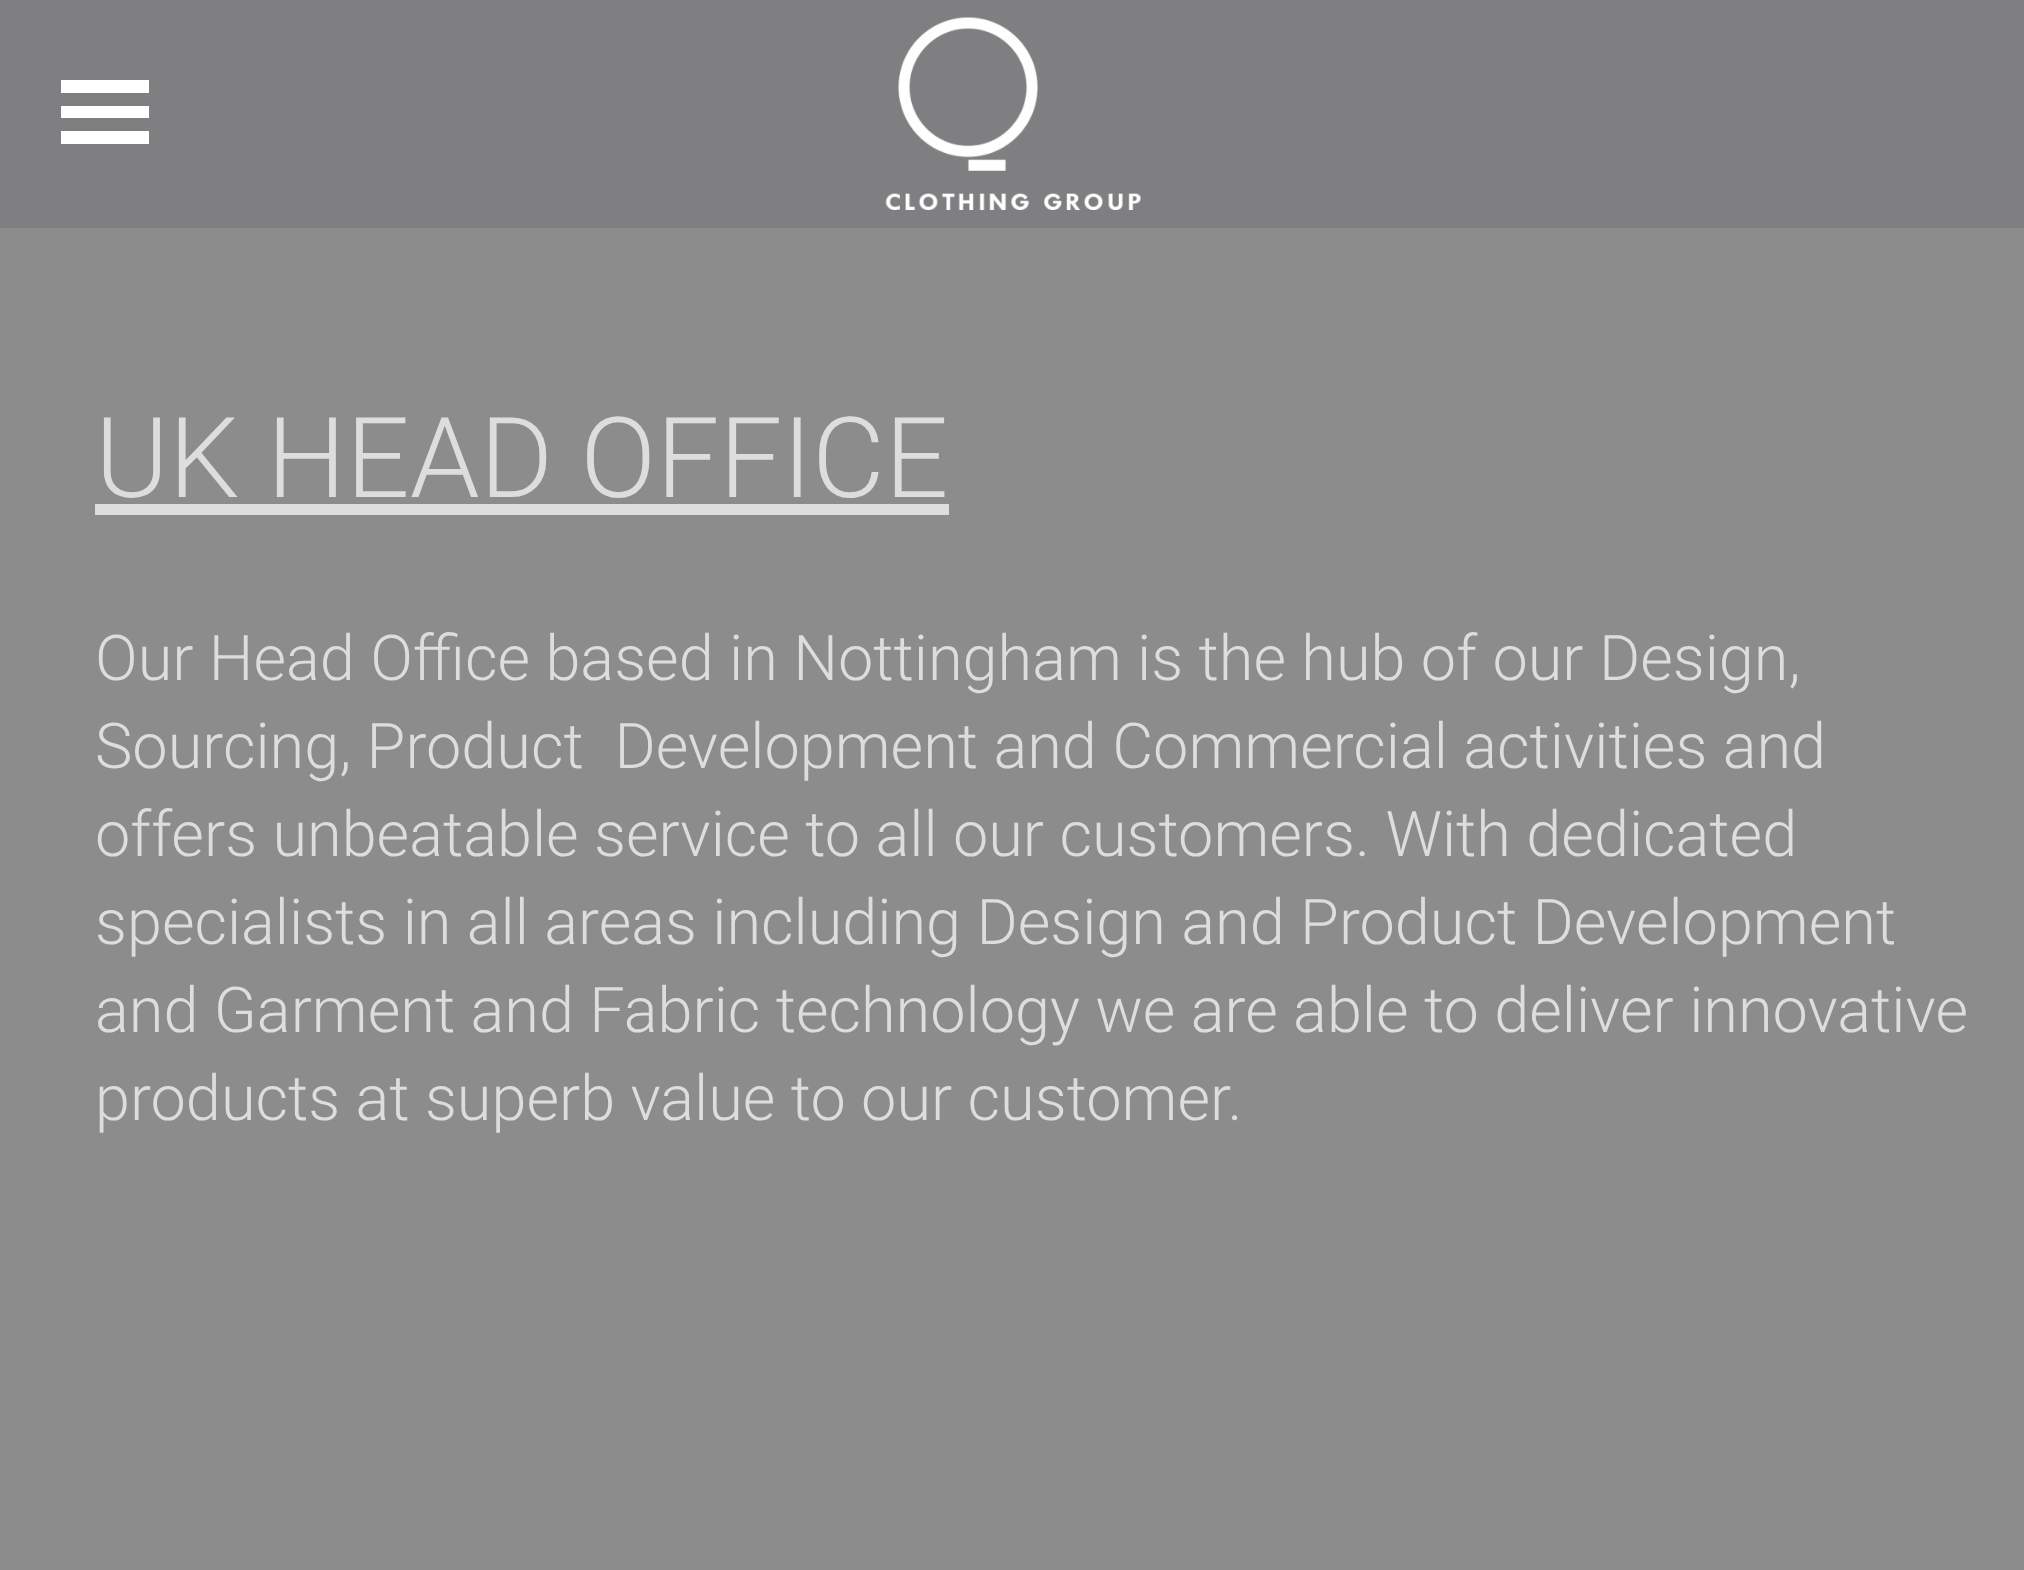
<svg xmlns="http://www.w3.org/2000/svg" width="2024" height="1570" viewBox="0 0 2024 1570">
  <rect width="100%" height="100%" fill="#8c8c8c"/>
  <rect x="0" y="0" width="2024" height="228" fill="#7f7f82"/>
  <path d="M149 93V80H61V93ZM149 118V106H61V118ZM149 144V131H61V144Z" fill="#ffffff"/>
  <image x="885" y="17" width="256" height="193" href="img1.png"/>
  <text x="95" y="497" font-family="Roboto" font-size="112" font-weight="300" fill="#dddddd">UK HEAD OFFICE</text>
  <rect x="95" y="504" width="854" height="11" fill="#dddddd"/>
  <text x="95" y="680" font-family="Roboto" font-size="63" font-weight="300" fill="#dddddd">Our Head Office based in Nottingham is the hub of our Design,</text>
  <text x="95" y="768" font-family="Roboto" font-size="63" font-weight="300" fill="#dddddd" xml:space="preserve">Sourcing, Product  Development and Commercial activities and</text>
  <text x="95" y="856" font-family="Roboto" font-size="63" font-weight="300" fill="#dddddd">offers unbeatable service to all our customers. With dedicated</text>
  <text x="95" y="944" font-family="Roboto" font-size="63" font-weight="300" fill="#dddddd">specialists in all areas including Design and Product Development</text>
  <text x="95" y="1032" font-family="Roboto" font-size="63" font-weight="300" fill="#dddddd">and Garment and Fabric technology we are able to deliver innovative</text>
  <text x="95" y="1120" font-family="Roboto" font-size="63" font-weight="300" fill="#dddddd">products at superb value to our customer.</text>
</svg>
